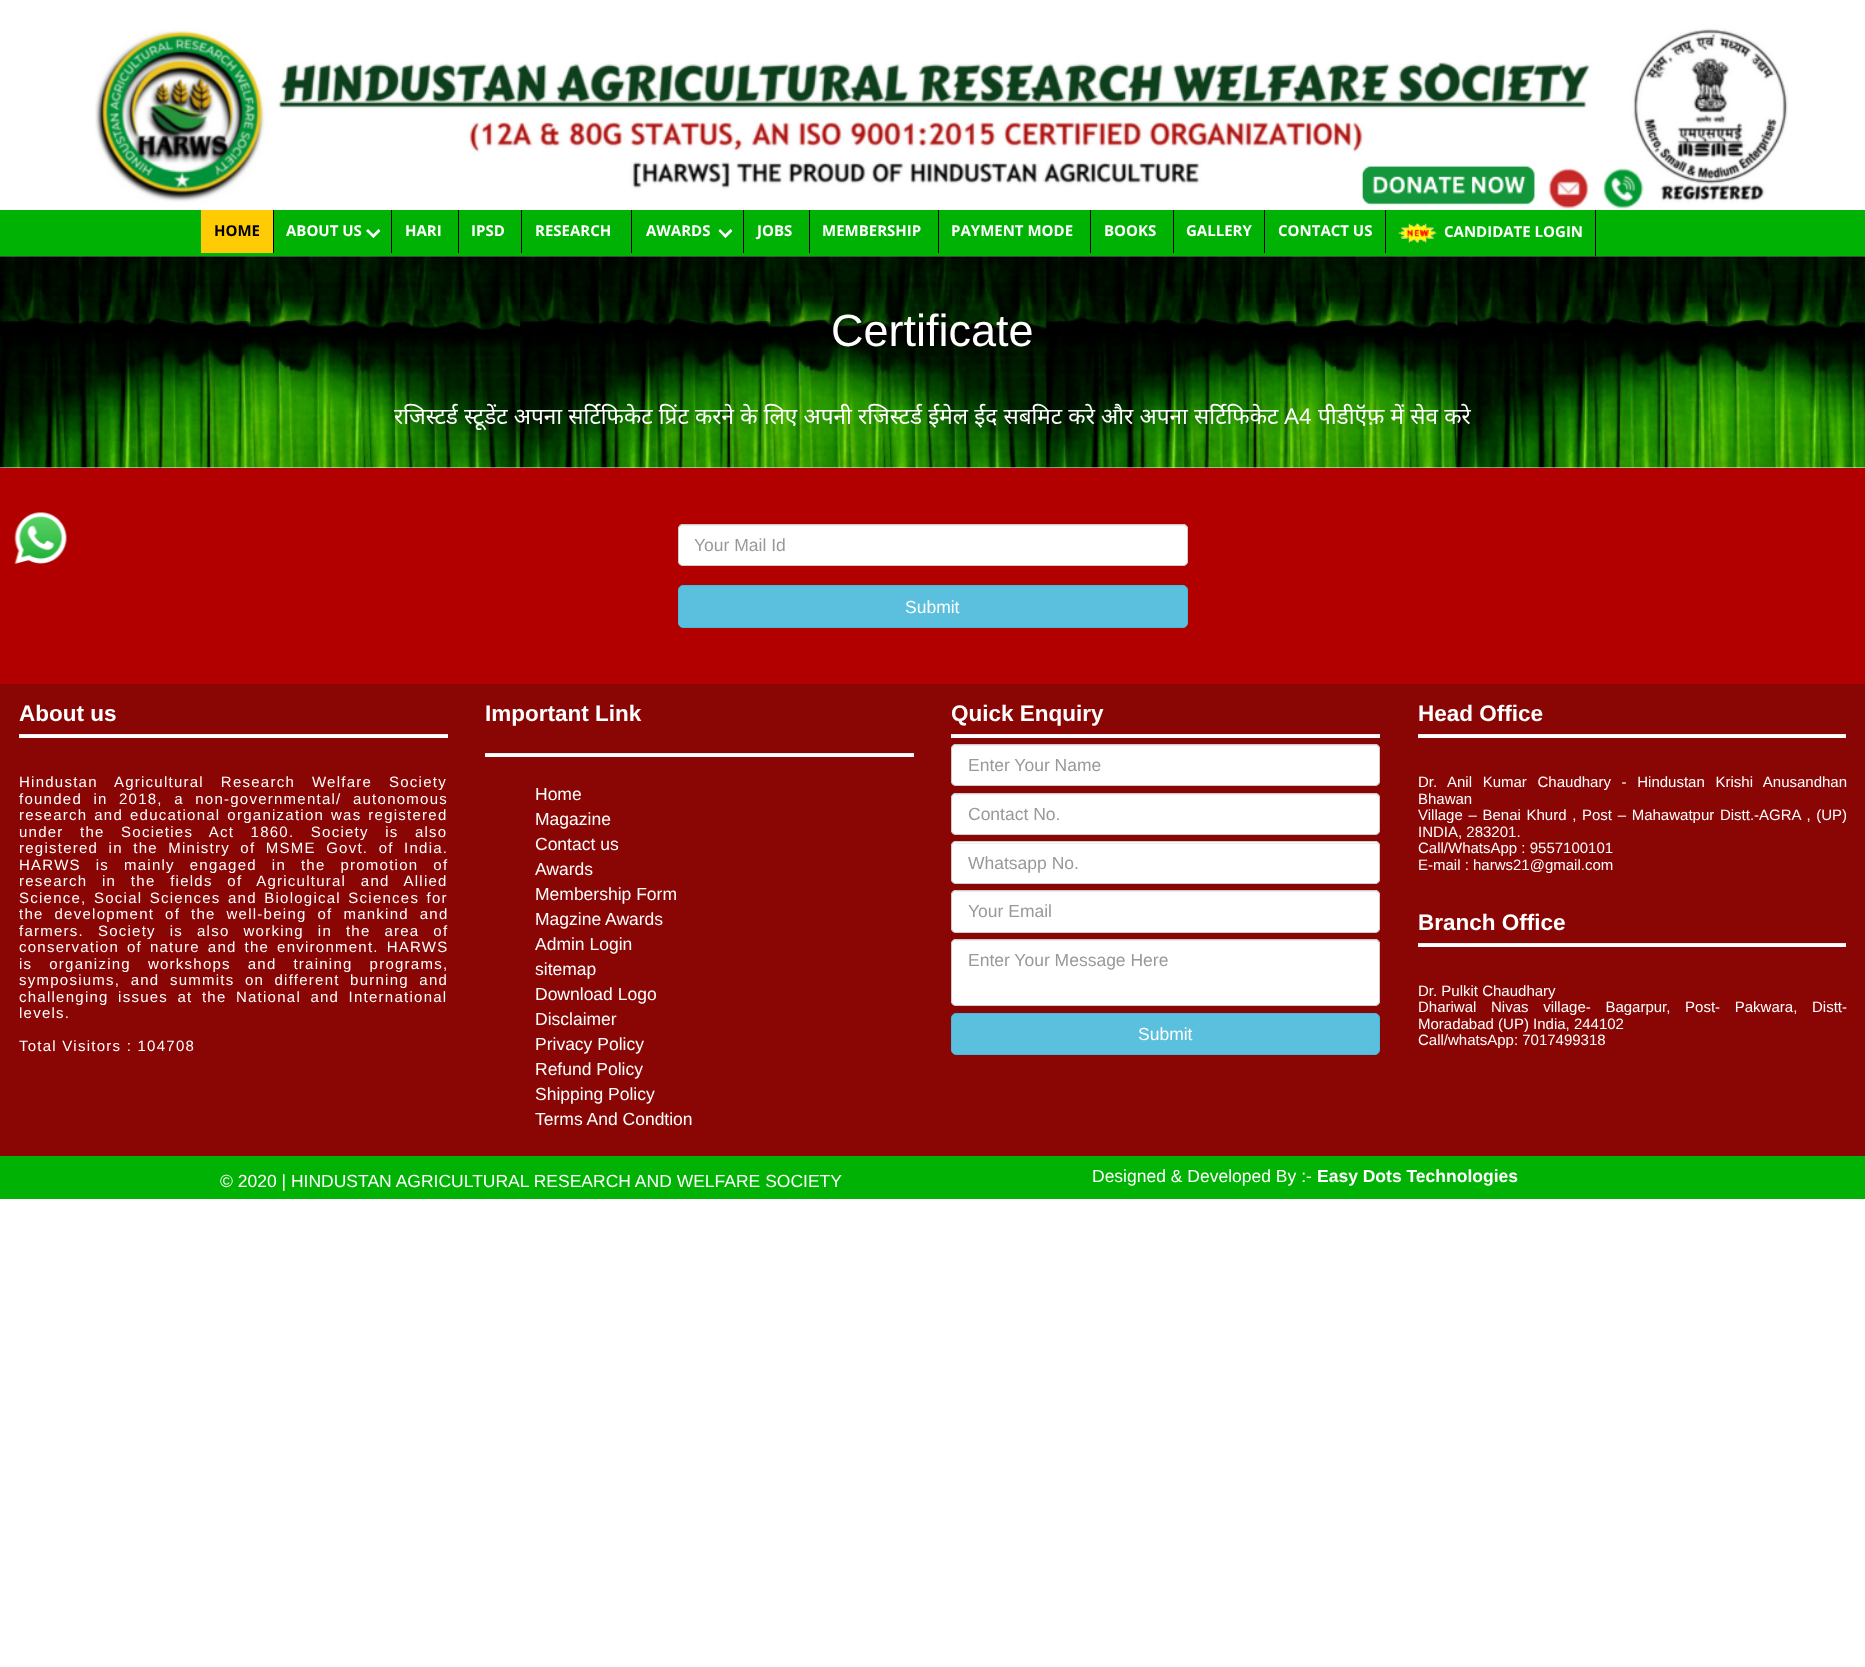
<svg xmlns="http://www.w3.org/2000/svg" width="1865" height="1667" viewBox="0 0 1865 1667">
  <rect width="100%" height="100%" fill="#ffffff"/>
  <image x="95" y="28" width="1693" height="181" href="img1.png"/>
  <rect x="0" y="210" width="1865" height="46" fill="#00b203"/>
  <rect x="273" y="210" width="1" height="43" fill="#000000"/>
  <rect x="201" y="210" width="72" height="43" fill="#ffcb05"/>
  <text x="214" y="236" font-family="Open Sans" font-size="15" font-weight="bold" fill="#000000">HOME</text>
  <rect x="391" y="210" width="1" height="43" fill="#000000"/>
  <text x="286" y="236" font-family="Open Sans" font-size="15" font-weight="bold" fill="#ffffff">ABOUT US</text>
  <path d="M378.5 229L380.5 231L373.5 238L371.5 236Z" fill="#ffffff"/>
  <path d="M368 229L375 236L373.5 238L366 231Z" fill="#ffffff"/>
  <rect x="458" y="210" width="1" height="43" fill="#000000"/>
  <text x="405" y="236" font-family="Open Sans" font-size="15" font-weight="bold" fill="#ffffff">HARI</text>
  <rect x="521" y="210" width="1" height="43" fill="#000000"/>
  <text x="471" y="236" font-family="Open Sans" font-size="15" font-weight="bold" fill="#ffffff">IPSD</text>
  <rect x="631" y="210" width="1" height="43" fill="#000000"/>
  <text x="535" y="236" font-family="Open Sans" font-size="15" font-weight="bold" fill="#ffffff">RESEARCH</text>
  <rect x="743" y="210" width="1" height="43" fill="#000000"/>
  <text x="646" y="236" font-family="Open Sans" font-size="15" font-weight="bold" fill="#ffffff">AWARDS</text>
  <path d="M730.5 229L732.5 231L725.5 238L723.5 236Z" fill="#ffffff"/>
  <path d="M720 229L727 236L725.5 238L718.5 231Z" fill="#ffffff"/>
  <rect x="809" y="210" width="1" height="43" fill="#000000"/>
  <text x="757" y="236" font-family="Open Sans" font-size="15" font-weight="bold" fill="#ffffff">JOBS</text>
  <rect x="938" y="210" width="1" height="43" fill="#000000"/>
  <text x="822" y="236" font-family="Open Sans" font-size="15" font-weight="bold" fill="#ffffff">MEMBERSHIP</text>
  <rect x="1090" y="210" width="1" height="43" fill="#000000"/>
  <text x="951" y="236" font-family="Open Sans" font-size="15" font-weight="bold" fill="#ffffff">PAYMENT MODE</text>
  <rect x="1173" y="210" width="1" height="43" fill="#000000"/>
  <text x="1104" y="236" font-family="Open Sans" font-size="15" font-weight="bold" fill="#ffffff">BOOKS</text>
  <rect x="1264" y="210" width="1" height="43" fill="#000000"/>
  <text x="1186" y="236" font-family="Open Sans" font-size="15" font-weight="bold" fill="#ffffff">GALLERY</text>
  <rect x="1385" y="210" width="1" height="43" fill="#000000"/>
  <text x="1278" y="236" font-family="Open Sans" font-size="15" font-weight="bold" fill="#ffffff">CONTACT US</text>
  <rect x="1595" y="210" width="1" height="46" fill="#000000"/>
  <image x="1398" y="223" width="39" height="20" href="img2.png"/>
  <text x="1444" y="237" font-family="Open Sans" font-size="15" font-weight="bold" fill="#ffffff">CANDIDATE LOGIN</text>
  <image x="0" y="256" width="1865" height="212" href="img3.png"/>
  <text x="831" y="346" font-family="Liberation Sans" font-size="45" fill="#ffffff">Certificate</text>
  <text x="394" y="424" word-spacing="0.4" font-family="Noto Sans" font-size="22.5" fill="#ffffff">रजिस्टर्ड स्टूडेंट अपना सर्टिफिकेट प्रिंट करने के लिए अपनी रजिस्टर्ड ईमेल ईद सबमिट करे और अपना सर्टिफिकेट</text>
  <text x="1284" y="424" font-family="Liberation Sans" font-size="22.5" fill="#ffffff">A4</text>
  <text x="1318" y="424" word-spacing="0.4" font-family="Noto Sans" font-size="22.5" fill="#ffffff">पीडीऍफ़ में सेव करे</text>
  <rect x="0" y="468" width="1865" height="216" fill="#b20000"/>
  <image x="14" y="512" width="53" height="52" href="img4.png"/>
  <rect x="678" y="524" width="510" height="42" rx="5" fill="#ffffff"/>
  <path d="M682 526H1182C1185 526 1186 528 1186 530V529C1186 527 1184 525 1182 525H683C681 525 679 527 679 529V530C679 528 680 526 682 526Z" fill="#ececec"/>
  <rect x="678.5" y="524.5" width="509" height="41" rx="4.5" fill="none" stroke="#cccccc"/>
  <text x="694" y="551" font-family="Liberation Sans" font-size="17.5" fill="#999999">Your Mail Id</text>
  <rect x="678.5" y="585.5" width="509" height="42" rx="4.5" fill="#5bc0de" stroke="#46b8da"/>
  <text x="905" y="613" font-family="Liberation Sans" font-size="17.5" fill="#ffffff">Submit</text>
  <rect x="0" y="684" width="1865" height="472" fill="#890604"/>
  <text x="19" y="721" font-family="Liberation Sans" font-size="22.5" font-weight="bold" fill="#ffffff">About us</text>
  <rect x="19" y="735" width="429" height="3" fill="#ffffff"/>
  <rect x="19" y="734" width="429" height="1" fill="#eeeeee"/>
  <text x="19" y="787" word-spacing="11.5" font-family="Liberation Sans" font-size="15" letter-spacing="1.25" fill="#ffffff">Hindustan Agricultural Research Welfare Society</text>
  <text x="19" y="804" word-spacing="6" font-family="Liberation Sans" font-size="15" letter-spacing="1.25" fill="#ffffff">founded in 2018, a non-governmental/ autonomous</text>
  <text x="19" y="820" word-spacing="1.5" font-family="Liberation Sans" font-size="15" letter-spacing="1.25" fill="#ffffff">research and educational organization was registered</text>
  <text x="19" y="837" word-spacing="11" font-family="Liberation Sans" font-size="15" letter-spacing="1.25" fill="#ffffff">under the Societies Act 1860. Society is also</text>
  <text x="19" y="853" word-spacing="5" font-family="Liberation Sans" font-size="15" letter-spacing="1.25" fill="#ffffff">registered in the Ministry of MSME Govt. of India.</text>
  <text x="19" y="870" word-spacing="9.5" font-family="Liberation Sans" font-size="15" letter-spacing="1.25" fill="#ffffff">HARWS is mainly engaged in the promotion of</text>
  <text x="19" y="886" word-spacing="9.25" font-family="Liberation Sans" font-size="15" letter-spacing="1.25" fill="#ffffff">research in the fields of Agricultural and Allied</text>
  <text x="19" y="903" word-spacing="2" font-family="Liberation Sans" font-size="15" letter-spacing="1.25" fill="#ffffff">Science, Social Sciences and Biological Sciences for</text>
  <text x="19" y="919" word-spacing="5.5" font-family="Liberation Sans" font-size="15" letter-spacing="1.25" fill="#ffffff">the development of the well-being of mankind and</text>
  <text x="19" y="936" word-spacing="8.5" font-family="Liberation Sans" font-size="15" letter-spacing="1.25" fill="#ffffff">farmers. Society is also working in the area of</text>
  <text x="19" y="952" word-spacing="2.5" font-family="Liberation Sans" font-size="15" letter-spacing="1.25" fill="#ffffff">conservation of nature and the environment. HARWS</text>
  <text x="19" y="969" word-spacing="11.5" font-family="Liberation Sans" font-size="15" letter-spacing="1.25" fill="#ffffff">is organizing workshops and training programs,</text>
  <text x="19" y="985" word-spacing="5" font-family="Liberation Sans" font-size="15" letter-spacing="1.25" fill="#ffffff">symposiums, and summits on different burning and</text>
  <text x="19" y="1002" word-spacing="4" font-family="Liberation Sans" font-size="15" letter-spacing="1.25" fill="#ffffff">challenging issues at the National and International</text>
  <text x="19" y="1018" font-family="Liberation Sans" font-size="15" letter-spacing="1.25" fill="#ffffff">levels.</text>
  <text x="19" y="1051" font-family="Liberation Sans" font-size="15" letter-spacing="1.25" fill="#ffffff">Total Visitors : 104708</text>
  <text x="485" y="721" font-family="Liberation Sans" font-size="22.5" font-weight="bold" fill="#ffffff">Important Link</text>
  <rect x="485" y="754" width="429" height="3" fill="#ffffff"/>
  <rect x="485" y="753" width="429" height="1" fill="#eeeeee"/>
  <text x="535" y="800" font-family="Liberation Sans" font-size="17.5" fill="#ffffff">Home</text>
  <text x="535" y="825" font-family="Liberation Sans" font-size="17.5" fill="#ffffff">Magazine</text>
  <text x="535" y="850" font-family="Liberation Sans" font-size="17.5" fill="#ffffff">Contact us</text>
  <text x="535" y="875" font-family="Liberation Sans" font-size="17.5" fill="#ffffff">Awards</text>
  <text x="535" y="900" font-family="Liberation Sans" font-size="17.5" fill="#ffffff">Membership Form</text>
  <text x="535" y="925" font-family="Liberation Sans" font-size="17.5" fill="#ffffff">Magzine Awards</text>
  <text x="535" y="950" font-family="Liberation Sans" font-size="17.5" fill="#ffffff">Admin Login</text>
  <text x="535" y="975" font-family="Liberation Sans" font-size="17.5" fill="#ffffff">sitemap</text>
  <text x="535" y="1000" font-family="Liberation Sans" font-size="17.5" fill="#ffffff">Download Logo</text>
  <text x="535" y="1025" font-family="Liberation Sans" font-size="17.5" fill="#ffffff">Disclaimer</text>
  <text x="535" y="1050" font-family="Liberation Sans" font-size="17.5" fill="#ffffff">Privacy Policy</text>
  <text x="535" y="1075" font-family="Liberation Sans" font-size="17.5" fill="#ffffff">Refund Policy</text>
  <text x="535" y="1100" font-family="Liberation Sans" font-size="17.5" fill="#ffffff">Shipping Policy</text>
  <text x="535" y="1125" font-family="Liberation Sans" font-size="17.5" fill="#ffffff">Terms And Condtion</text>
  <text x="951" y="721" font-family="Liberation Sans" font-size="22.5" font-weight="bold" fill="#ffffff">Quick Enquiry</text>
  <rect x="951" y="735" width="429" height="3" fill="#ffffff"/>
  <rect x="951" y="734" width="429" height="1" fill="#eeeeee"/>
  <rect x="951" y="744" width="429" height="42" rx="5" fill="#ffffff"/>
  <path d="M956 746H1375C1377 746 1379 748 1379 750V749C1379 747 1377 745 1375 745H957C956 745 954 746 954 747Z" fill="#ececec"/>
  <rect x="951.5" y="744.5" width="428" height="41" rx="4.5" fill="none" stroke="#cccccc"/>
  <text x="968" y="771" font-family="Liberation Sans" font-size="17.5" fill="#999999">Enter Your Name</text>
  <rect x="951" y="793" width="429" height="42" rx="5" fill="#ffffff"/>
  <path d="M956 795H1375C1377 795 1379 797 1379 799V798C1379 796 1377 794 1375 794H957C956 794 954 795 954 796Z" fill="#ececec"/>
  <rect x="951.5" y="793.5" width="428" height="41" rx="4.5" fill="none" stroke="#cccccc"/>
  <text x="968" y="820" font-family="Liberation Sans" font-size="17.5" fill="#999999">Contact No.</text>
  <rect x="951" y="841" width="429" height="43" rx="5" fill="#ffffff"/>
  <path d="M956 844H1375C1377 844 1379 845 1379 848V847C1379 845 1377 843 1375 843H957C956 843 955 844 954 844Z" fill="#ececec"/>
  <rect x="951.5" y="841.5" width="428" height="42" rx="4.5" fill="none" stroke="#cccccc"/>
  <text x="968" y="869" font-family="Liberation Sans" font-size="17.5" fill="#999999">Whatsapp No.</text>
  <rect x="951" y="890" width="429" height="43" rx="5" fill="#ffffff"/>
  <path d="M956 892H1375C1377 892 1379 894 1379 896V895C1379 893 1377 891 1375 891H957C956 891 954 892 954 893Z" fill="#ececec"/>
  <rect x="951.5" y="890.5" width="428" height="42" rx="4.5" fill="none" stroke="#cccccc"/>
  <text x="968" y="917" font-family="Liberation Sans" font-size="17.5" fill="#999999">Your Email</text>
  <rect x="951" y="939" width="429" height="67" rx="5" fill="#ffffff"/>
  <path d="M956 941H1375C1377 941 1379 943 1379 945V944C1379 942 1377 940 1375 940H957C956 940 954 941 954 942Z" fill="#ececec"/>
  <rect x="951.5" y="939.5" width="428" height="66" rx="4.5" fill="none" stroke="#cccccc"/>
  <text x="968" y="966" font-family="Liberation Sans" font-size="17.5" fill="#999999">Enter Your Message Here</text>
  <rect x="951.5" y="1013.5" width="428" height="41" rx="4.5" fill="#5bc0de" stroke="#46b8da"/>
  <text x="1138" y="1040" font-family="Liberation Sans" font-size="17.5" fill="#ffffff">Submit</text>
  <text x="1418" y="721" font-family="Liberation Sans" font-size="22.5" font-weight="bold" fill="#ffffff">Head Office</text>
  <rect x="1418" y="735" width="428" height="3" fill="#ffffff"/>
  <rect x="1418" y="734" width="428" height="1" fill="#eeeeee"/>
  <text x="1418" y="787" word-spacing="6.5" font-family="Liberation Sans" font-size="15" fill="#ffffff">Dr. Anil Kumar Chaudhary - Hindustan Krishi Anusandhan</text>
  <text x="1418" y="804" font-family="Liberation Sans" font-size="15" fill="#ffffff">Bhawan</text>
  <text x="1418" y="820" word-spacing="1.5" font-family="Liberation Sans" font-size="15" fill="#ffffff">Village – Benai Khurd , Post – Mahawatpur Distt.-AGRA , (UP)</text>
  <text x="1418" y="837" font-family="Liberation Sans" font-size="15" fill="#ffffff">INDIA, 283201.</text>
  <text x="1418" y="853" font-family="Liberation Sans" font-size="15" fill="#ffffff">Call/WhatsApp : 9557100101</text>
  <text x="1418" y="870" font-family="Liberation Sans" font-size="15" fill="#ffffff">E-mail : harws21@gmail.com</text>
  <text x="1418" y="930" font-family="Liberation Sans" font-size="22.5" font-weight="bold" fill="#ffffff">Branch Office</text>
  <rect x="1418" y="944" width="428" height="3" fill="#ffffff"/>
  <rect x="1418" y="943" width="428" height="1" fill="#eeeeee"/>
  <text x="1418" y="996" font-family="Liberation Sans" font-size="15" fill="#ffffff">Dr. Pulkit Chaudhary</text>
  <text x="1418" y="1012" word-spacing="10.5" font-family="Liberation Sans" font-size="15" fill="#ffffff">Dhariwal Nivas village- Bagarpur, Post- Pakwara, Distt-</text>
  <text x="1418" y="1029" font-family="Liberation Sans" font-size="15" fill="#ffffff">Moradabad (UP) India, 244102</text>
  <text x="1418" y="1045" font-family="Liberation Sans" font-size="15" fill="#ffffff">Call/whatsApp: 7017499318</text>
  <rect x="0" y="1156" width="1865" height="43" fill="#00b203"/>
  <text x="220" y="1187" font-family="Liberation Sans" font-size="17.5" fill="#ffffff">© 2020 | HINDUSTAN AGRICULTURAL RESEARCH AND WELFARE SOCIETY</text>
  <text x="1092" y="1182" font-family="Liberation Sans" font-size="17.5" fill="#ffffff">Designed &amp; Developed By :-</text>
  <text x="1317" y="1182" font-family="Liberation Sans" font-size="17.5" font-weight="bold" fill="#ffffff">Easy Dots Technologies</text>
</svg>
